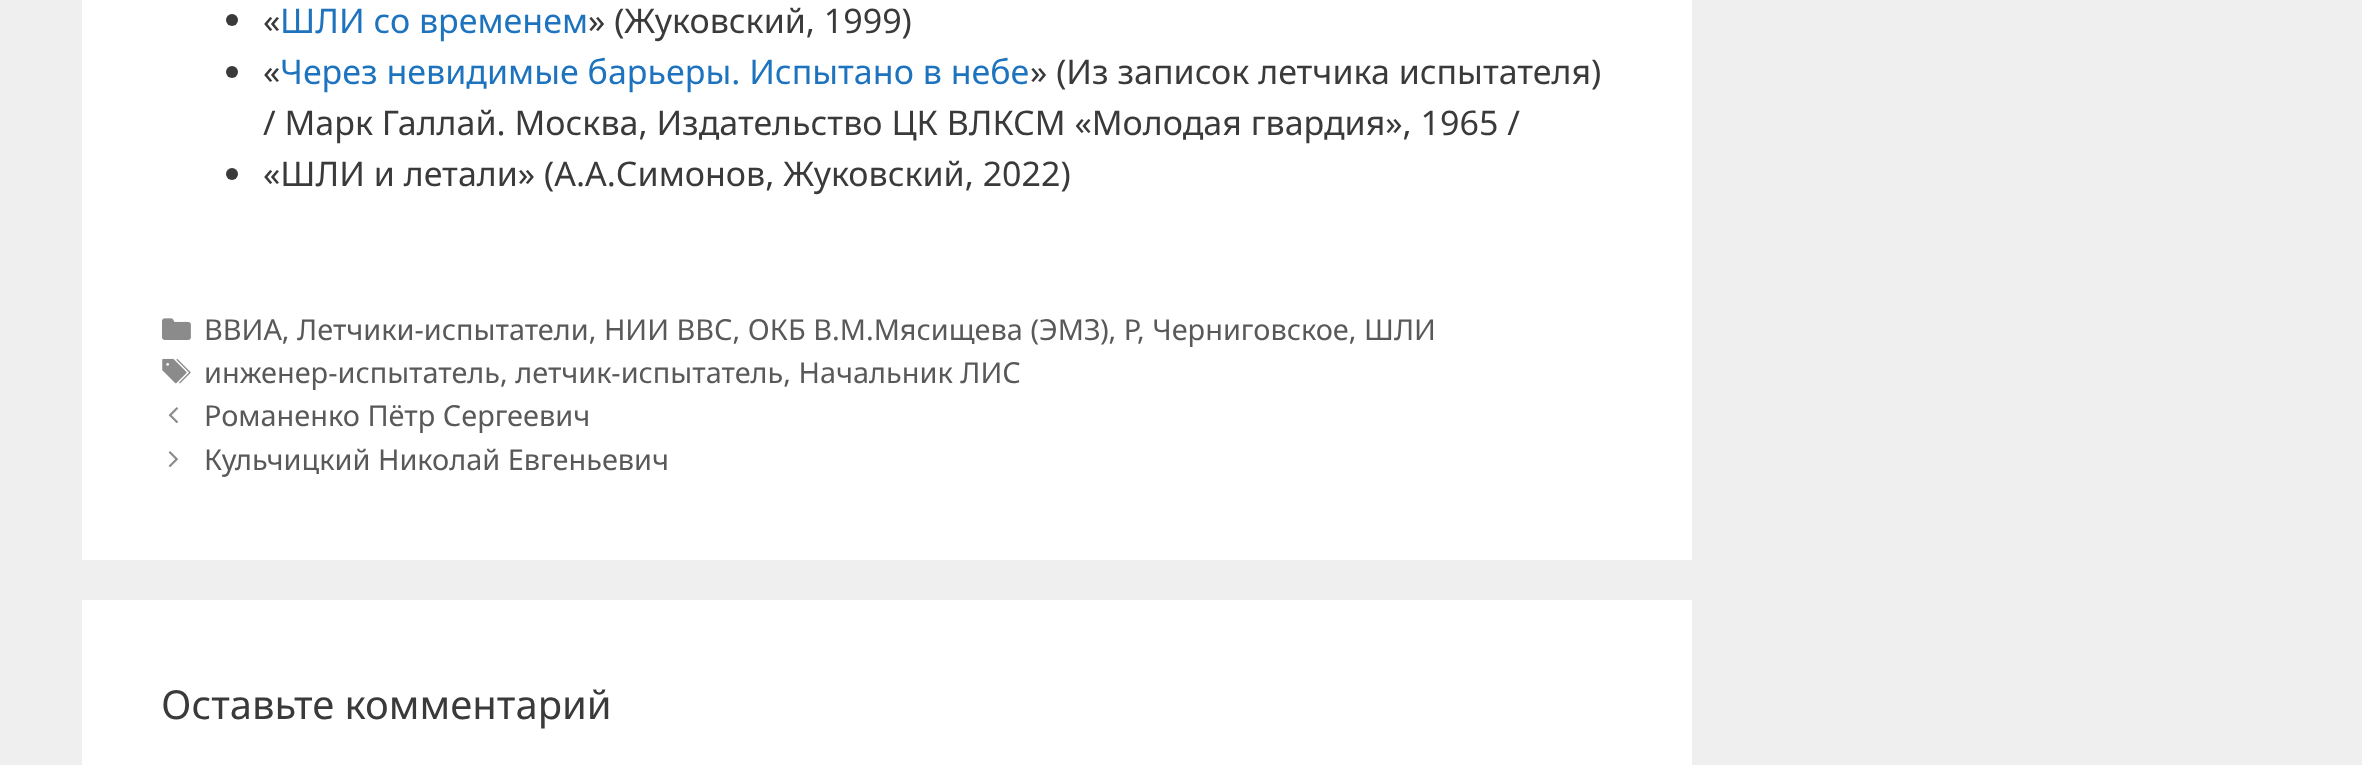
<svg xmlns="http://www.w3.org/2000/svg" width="2362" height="765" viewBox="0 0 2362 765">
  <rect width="100%" height="100%" fill="#efefef"/>
  <rect x="82" y="0" width="1610" height="560" fill="#ffffff"/>
  <circle cx="232" cy="20" r="6" fill="#3a3a3a"/>
  <text x="263" y="33" font-family="Noto Sans" font-size="34" fill="#3a3a3a">«</text>
  <text x="280" y="33" font-family="Noto Sans" font-size="34" fill="#1e73be">ШЛИ со временем</text>
  <text x="588" y="33" font-family="Noto Sans" font-size="34" fill="#3a3a3a">» (Жуковский, 1999)</text>
  <circle cx="232" cy="72" r="6" fill="#3a3a3a"/>
  <text x="263" y="84" font-family="Noto Sans" font-size="34" fill="#3a3a3a">«</text>
  <text x="280" y="84" font-family="Noto Sans" font-size="34" fill="#1e73be">Через невидимые барьеры. Испытано в небе</text>
  <text x="1030" y="84" font-family="Noto Sans" font-size="34" fill="#3a3a3a">» (Из записок летчика испытателя)</text>
  <text x="263" y="135" font-family="Noto Sans" font-size="34" fill="#3a3a3a">/ Марк Галлай. Москва, Издательство ЦК ВЛКСМ «Молодая гвардия», 1965 /</text>
  <circle cx="232" cy="174" r="6" fill="#3a3a3a"/>
  <text x="263" y="186" font-family="Noto Sans" font-size="34" fill="#3a3a3a">«ШЛИ и летали» (А.А.Симонов, Жуковский, 2022)</text>
  <image x="162" y="318" width="29" height="22" href="img1.png"/>
  <text x="204" y="340" font-family="Noto Sans" font-size="28.9" fill="#595959">ВВИА, Летчики-испытатели, НИИ ВВС, ОКБ В.М.Мясищева (ЭМЗ), Р</text>
  <text x="1137" y="340" font-family="Noto Sans" font-size="28.9" fill="#595959">, Черниговское, ШЛИ</text>
  <image x="162" y="358" width="29" height="26" href="img2.png"/>
  <text x="204" y="383" font-family="Noto Sans" font-size="28.9" fill="#595959">инженер-испытатель, летчик-испытатель, Начальник ЛИС</text>
  <image x="168" y="407" width="10" height="17" href="img3.png"/>
  <text x="204" y="426" font-family="Noto Sans" font-size="28.9" fill="#595959">Романенко Пётр Сергеевич</text>
  <image x="168" y="451" width="10" height="17" href="img4.png"/>
  <text x="204" y="470" font-family="Noto Sans" font-size="28.9" fill="#595959">Кульчицкий Николай Евгеньевич</text>
  <rect x="82" y="600" width="1610" height="165" fill="#ffffff"/>
  <text x="161" y="719" font-family="Noto Sans" font-size="40" fill="#3a3a3a">Оставьте комментарий</text>
</svg>
